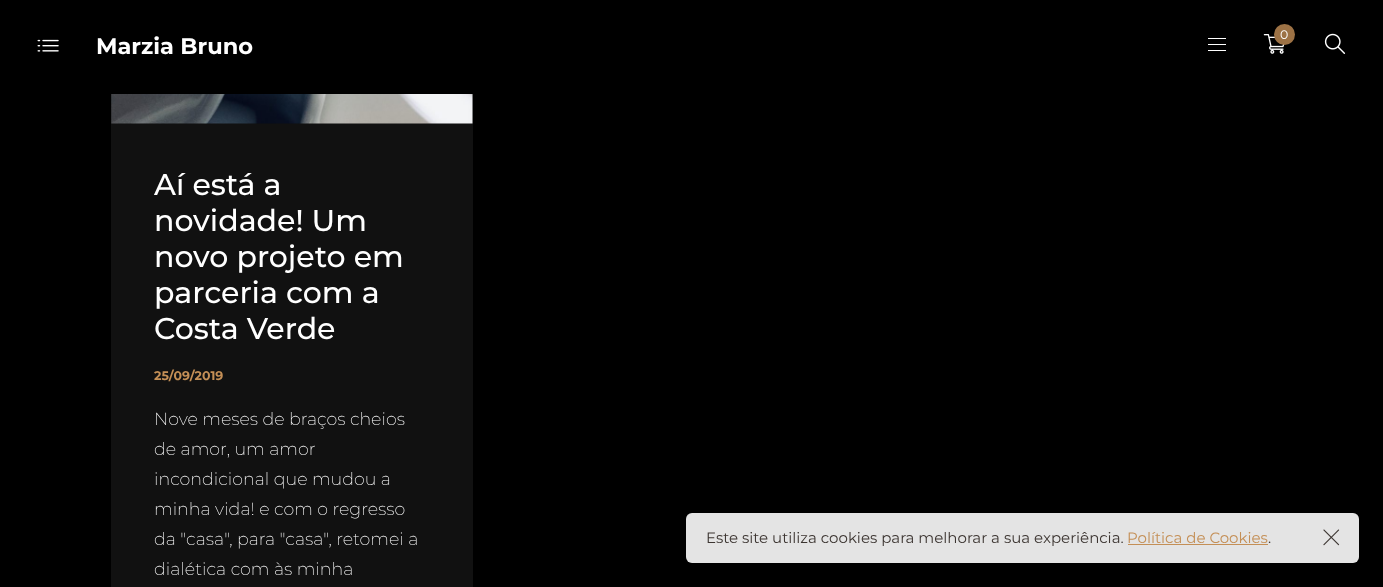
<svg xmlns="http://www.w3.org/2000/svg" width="1383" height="587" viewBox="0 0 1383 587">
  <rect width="100%" height="100%" fill="#000000"/>
  <rect x="1208" y="38" width="18" height="1" fill="#ffffff"/>
  <rect x="1208" y="44" width="18" height="1" fill="#ffffff"/>
  <rect x="1208" y="50" width="18" height="1" fill="#ffffff"/>
  <image x="1263" y="34" width="22" height="20" href="img1.png"/>
  <circle cx="1284.5" cy="34.5" r="10.5" fill="#9d7245"/>
  <text x="1280" y="39" font-family="Montserrat" font-size="12.5" fill="#ffffff">0</text>
  <image x="1324" y="33" width="22" height="21" href="img2.png"/>
  <image x="37" y="39" width="22" height="13" href="img3.png"/>
  <text x="96" y="54" font-family="Montserrat" font-size="22.5" font-weight="bold" fill="#ffffff">Marzia Bruno</text>
  <rect x="111" y="94" width="362" height="493" fill="#111111"/>
  <image x="111" y="94" width="362" height="30" href="img4.png"/>
  <text x="154" y="195" font-family="Montserrat" font-size="30" font-weight="500" fill="#ffffff">Aí está a</text>
  <text x="154" y="231" font-family="Montserrat" font-size="30" font-weight="500" fill="#ffffff">novidade! Um</text>
  <text x="154" y="267" font-family="Montserrat" font-size="30" font-weight="500" fill="#ffffff">novo projeto em</text>
  <text x="154" y="303" font-family="Montserrat" font-size="30" font-weight="500" fill="#ffffff">parceria com a</text>
  <text x="154" y="339" font-family="Montserrat" font-size="30" font-weight="500" fill="#ffffff">Costa Verde</text>
  <text x="154" y="380" font-family="Montserrat" font-size="12.5" font-weight="bold" fill="#c48f56">25/09/2019</text>
  <text x="154" y="425" font-family="Montserrat" font-size="17.5" font-weight="200" fill="#ffffff">Nove meses de braços cheios</text>
  <text x="154" y="455" font-family="Montserrat" font-size="17.5" font-weight="200" fill="#ffffff">de amor, um amor</text>
  <text x="154" y="485" font-family="Montserrat" font-size="17.5" font-weight="200" fill="#ffffff">incondicional que mudou a</text>
  <text x="154" y="515" font-family="Montserrat" font-size="17.5" font-weight="200" fill="#ffffff">minha vida! e com o regresso</text>
  <text x="154" y="545" font-family="Montserrat" font-size="17.5" font-weight="200" fill="#ffffff">da "casa", para "casa", retomei a</text>
  <text x="154" y="575" font-family="Montserrat" font-size="17.5" font-weight="200" fill="#ffffff">dialética com às minha</text>
  <rect x="686" y="513" width="673" height="50" rx="6" fill="#e4e4e4"/>
  <text x="706" y="543" font-family="Montserrat" font-size="15" fill="#3c3531">Este site utiliza cookies para melhorar a sua experiência.</text>
  <text x="1127" y="543" font-family="Montserrat" font-size="15" fill="#c48f56">Política de Cookies</text>
  <rect x="1128" y="544" width="140" height="1" fill="#c48f56"/>
  <text x="1268" y="543" font-family="Montserrat" font-size="15" fill="#3c3531">.</text>
  <image x="1323" y="529" width="17" height="17" href="img5.png"/>
</svg>
